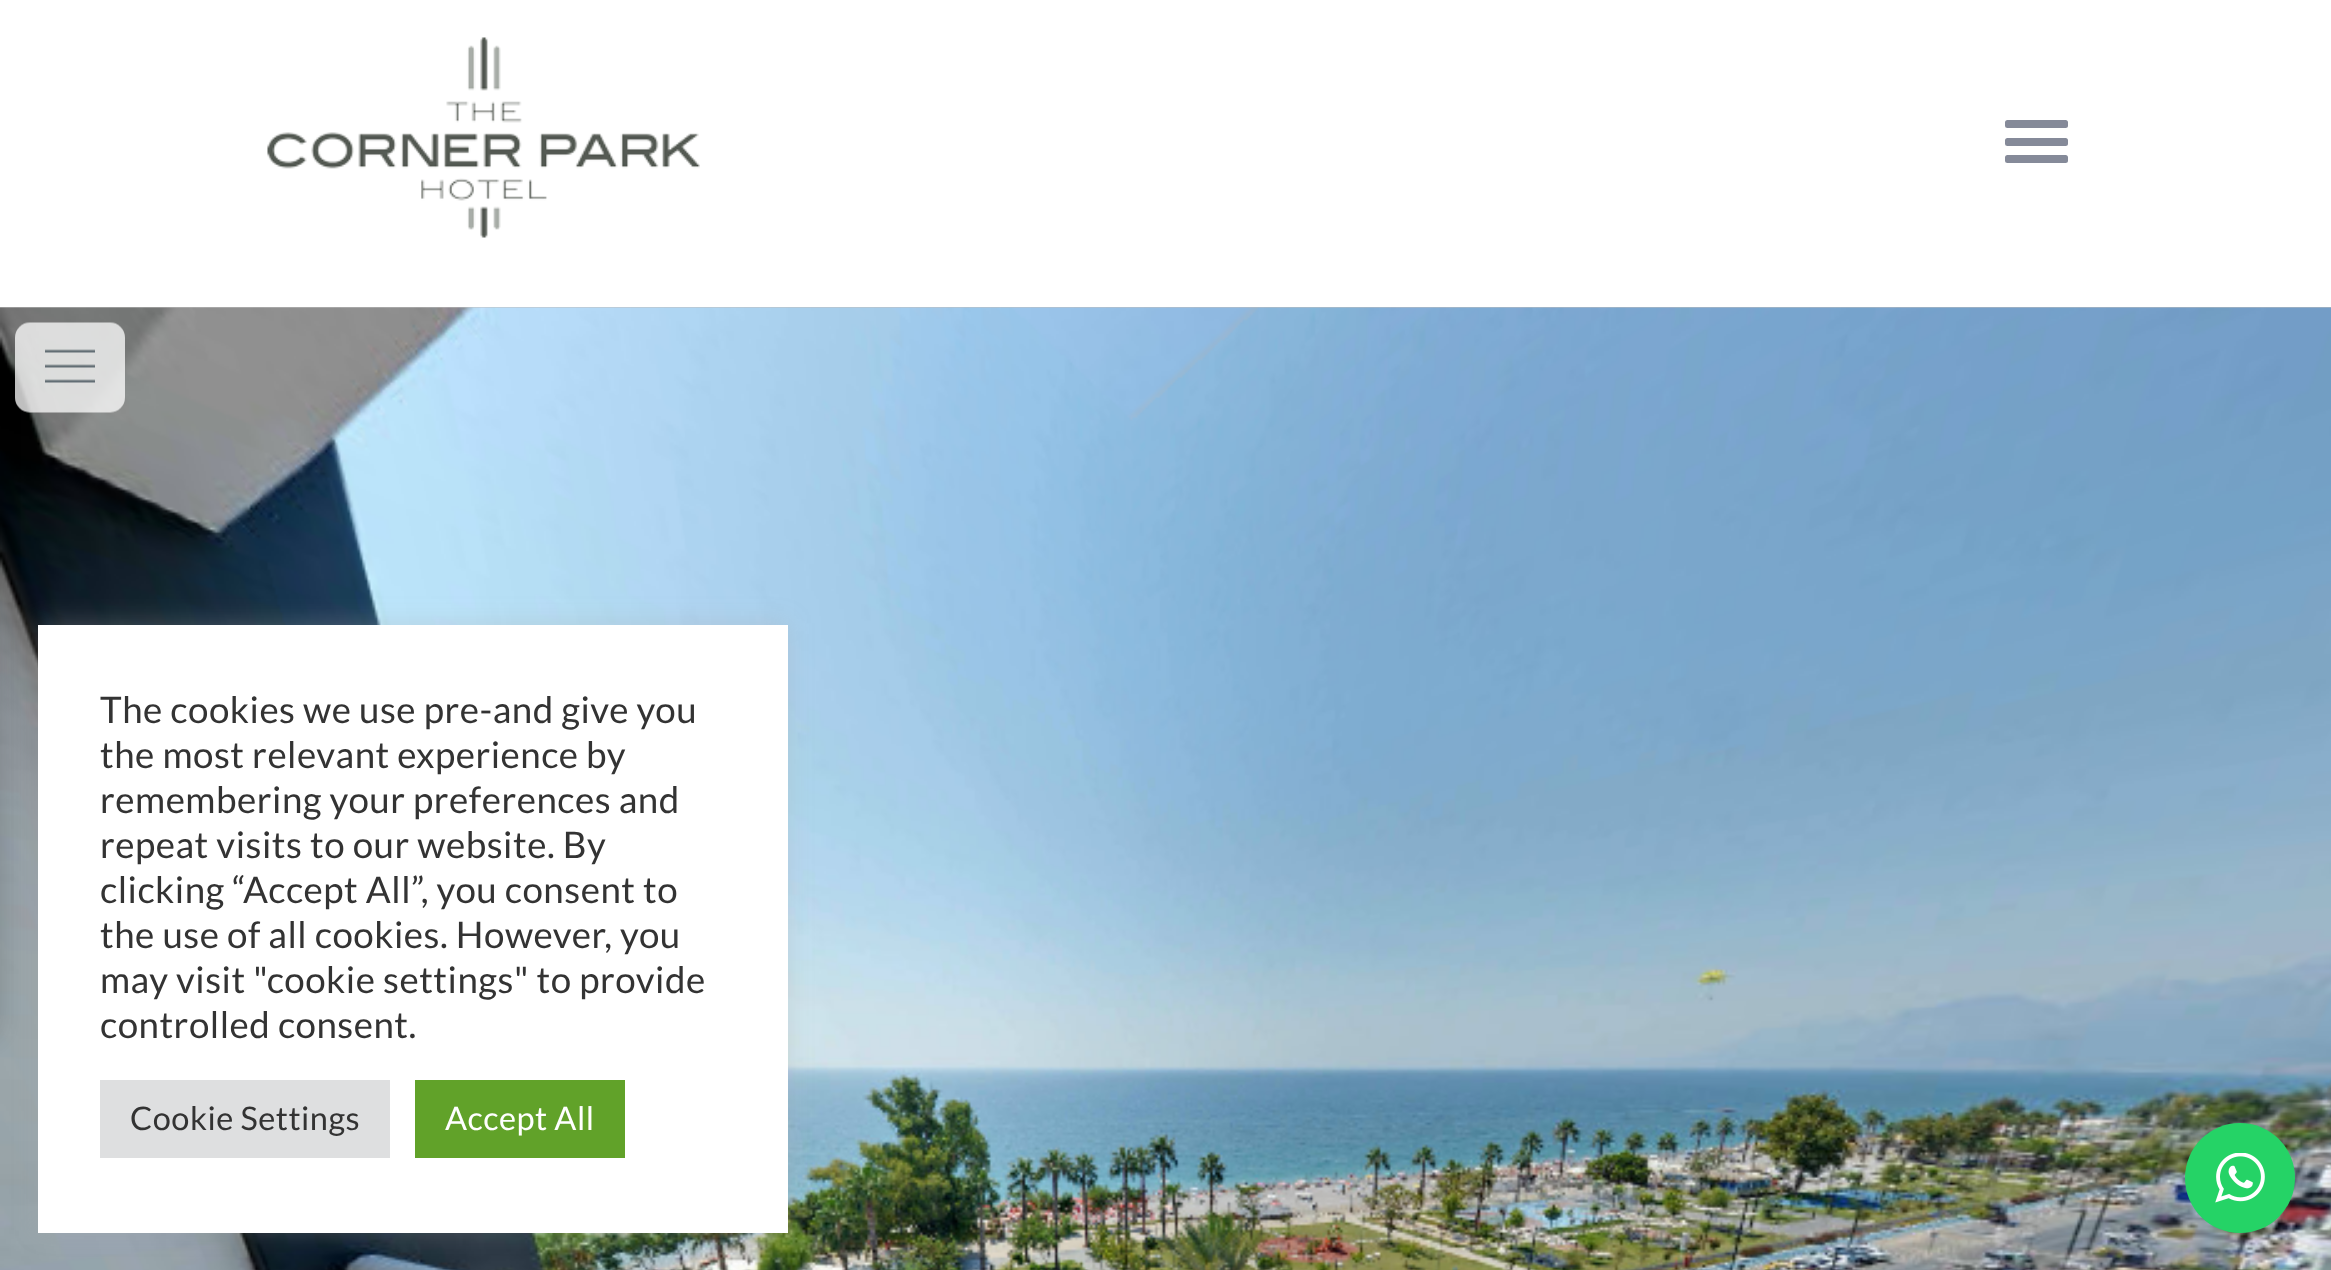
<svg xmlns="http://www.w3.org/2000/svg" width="2331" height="1270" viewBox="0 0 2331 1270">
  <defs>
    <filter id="blur1" x="-50%" y="-200%" width="200%" height="500%"><feGaussianBlur stdDeviation="12.5"/></filter>
  </defs>
  <rect width="100%" height="100%" fill="#ffffff"/>
  <image x="267" y="37" width="433" height="201" href="img1.png"/>
  <rect x="2005" y="120" width="63" height="8" rx="2.5" fill="#858a99"/>
  <rect x="2005" y="138" width="63" height="8" rx="2.5" fill="#858a99"/>
  <rect x="2005" y="155" width="63" height="8" rx="2.5" fill="#858a99"/>
  <image x="0" y="307" width="2331" height="963" href="img2.png"/>
  <rect x="38" y="623" width="750" height="607" fill="#acabab" fill-opacity="0.3" filter="url(#blur1)"/>
  <rect x="38" y="625" width="750" height="608" fill="#ffffff"/>
  <text x="100" y="723" font-family="Lato" font-size="36.7" letter-spacing="0.5" fill="#333333">The cookies we use pre-and give you</text>
  <text x="100" y="768" font-family="Lato" font-size="36.7" letter-spacing="0.5" fill="#333333">the most relevant experience by</text>
  <text x="100" y="813" font-family="Lato" font-size="36.7" letter-spacing="0.5" fill="#333333">remembering your preferences and</text>
  <text x="100" y="858" font-family="Lato" font-size="36.7" letter-spacing="0.5" fill="#333333">repeat visits to our website. By</text>
  <text x="100" y="903" font-family="Lato" font-size="36.7" letter-spacing="0.5" fill="#333333">clicking “Accept All”, you consent to</text>
  <text x="100" y="948" font-family="Lato" font-size="36.7" letter-spacing="0.5" fill="#333333">the use of all cookies. However, you</text>
  <text x="100" y="993" font-family="Lato" font-size="36.7" letter-spacing="0.5" fill="#333333">may visit "cookie settings" to provide</text>
  <text x="100" y="1038" font-family="Lato" font-size="36.7" letter-spacing="0.5" fill="#333333">controlled consent.</text>
  <rect x="100" y="1080" width="290" height="78" fill="#dedfe0"/>
  <text x="130" y="1130" font-family="Lato" font-size="32.5" letter-spacing="0.5" fill="#333333">Cookie Settings</text>
  <rect x="415" y="1080" width="210" height="78" fill="#61a229"/>
  <text x="445" y="1130" font-family="Lato" font-size="32.5" letter-spacing="0.5" fill="#ffffff">Accept All</text>
  <circle cx="2240" cy="1178" r="55" fill="#25d366"/>
  <image x="2215" y="1153" width="50" height="50" href="img3.png"/>
</svg>
